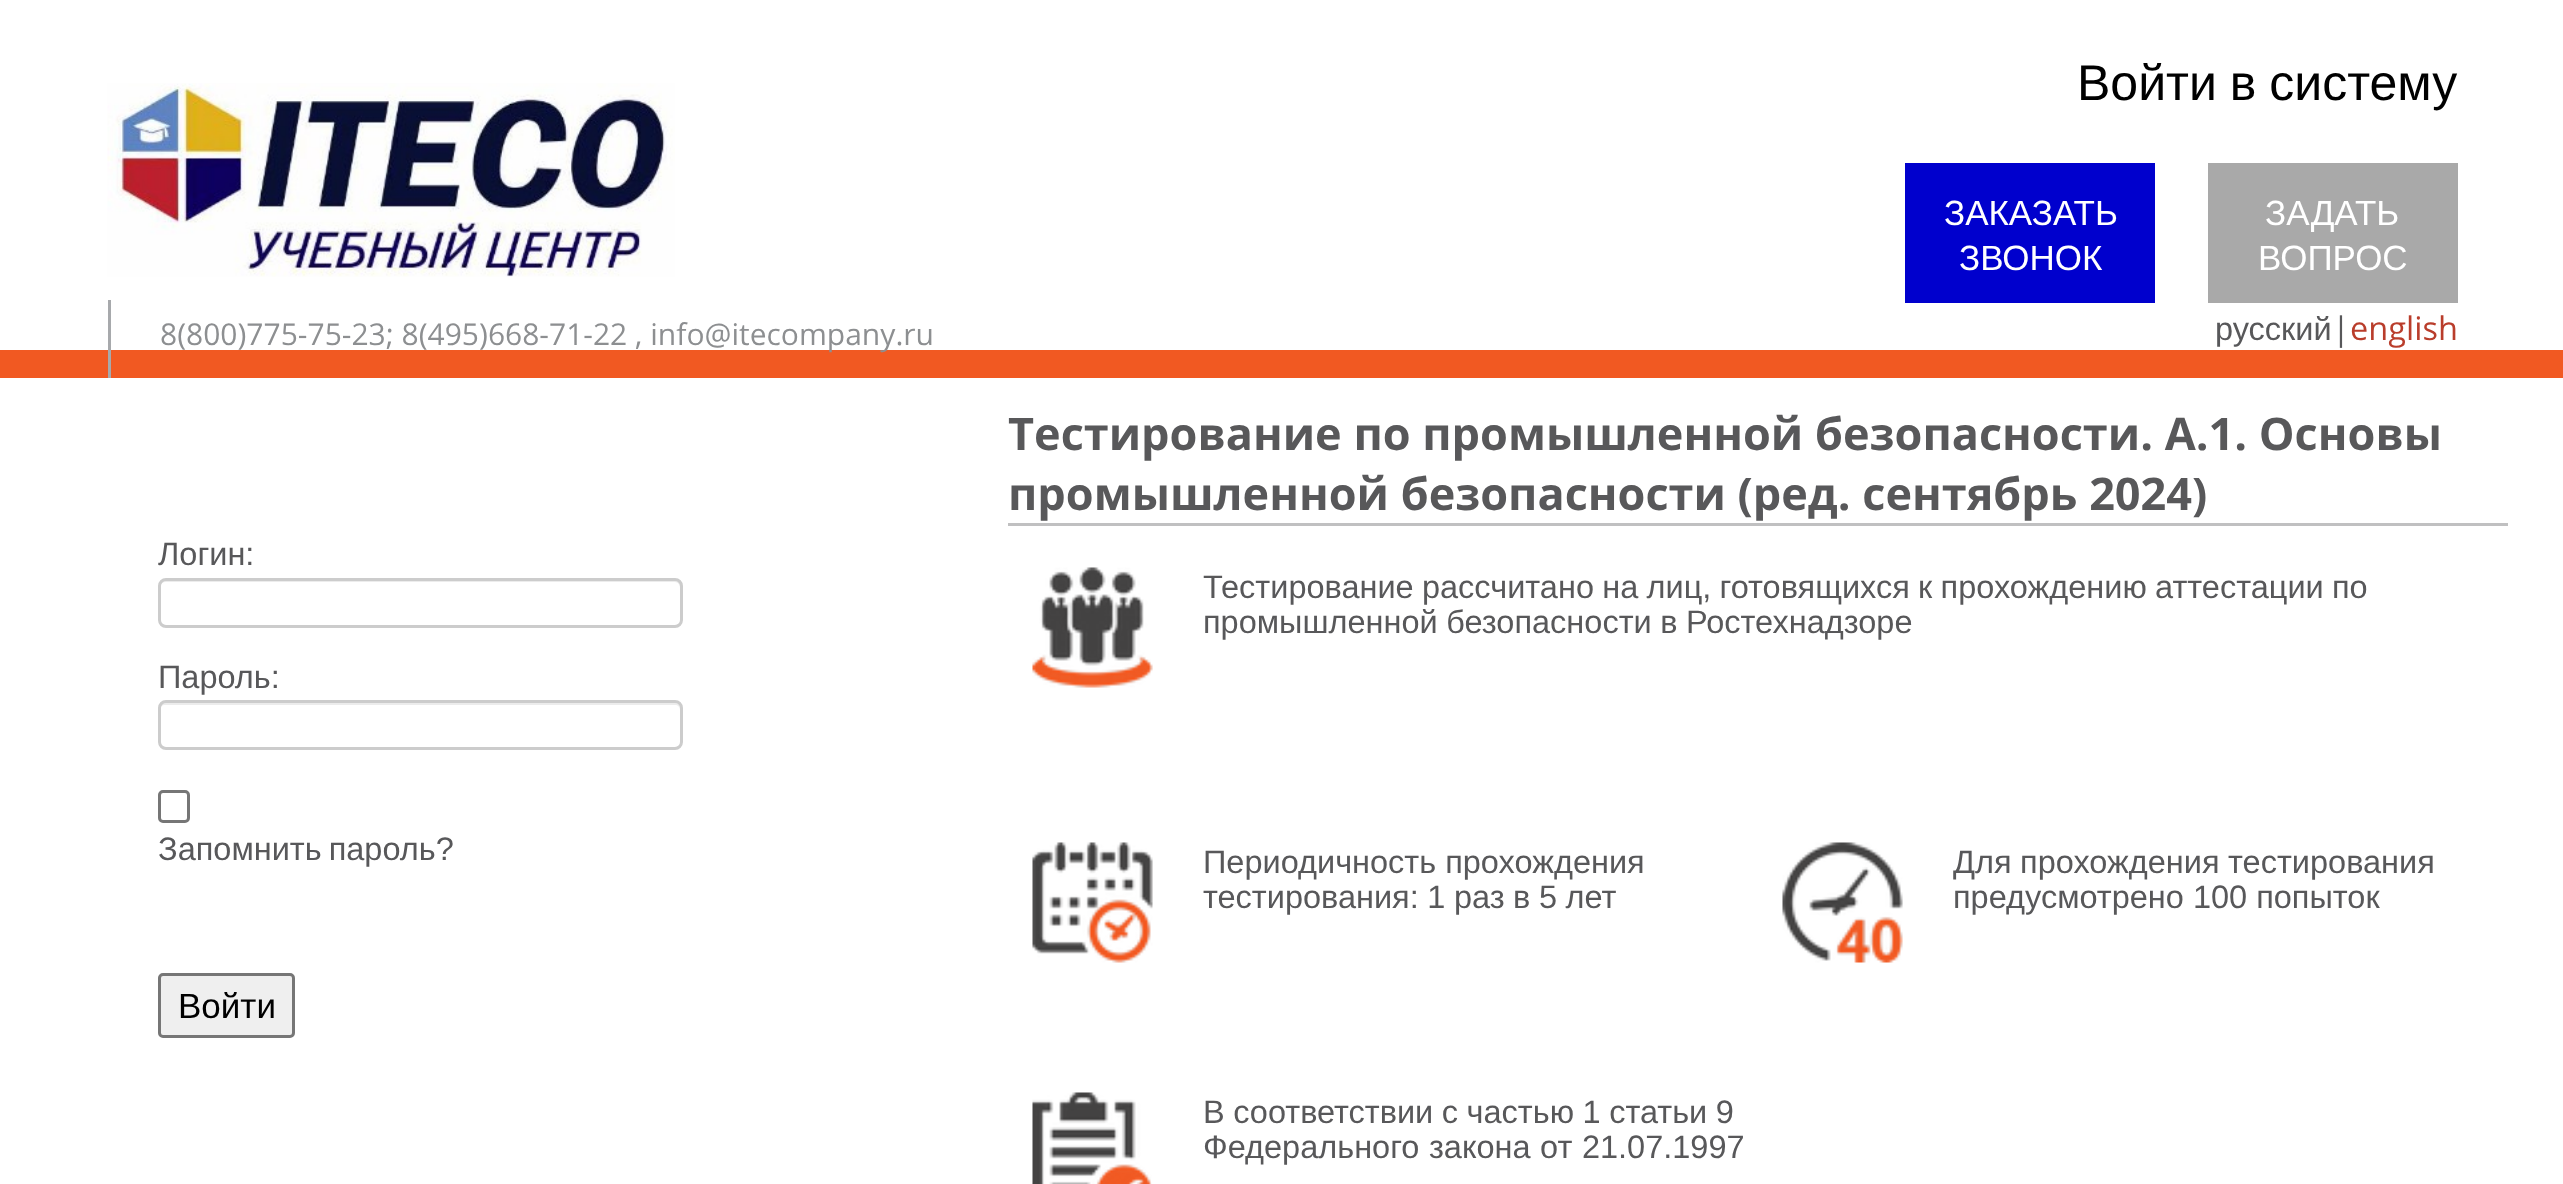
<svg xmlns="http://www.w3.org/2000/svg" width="2563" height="1184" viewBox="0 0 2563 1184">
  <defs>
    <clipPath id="clip1"><rect x="1953" y="843" width="550" height="250"/></clipPath>
  </defs>
  <rect width="100%" height="100%" fill="#ffffff"/>
  <rect x="0" y="350" width="2563" height="28" fill="#f15922"/>
  <image x="107" y="83" width="568" height="194" href="img1.png"/>
  <text x="2077" y="100" word-spacing="-1" font-family="Liberation Sans" font-size="50" fill="#000000">Войти в систему</text>
  <rect x="1905" y="163" width="250" height="140" fill="#0000cd"/>
  <text x="1944" y="225" font-family="Liberation Sans" font-size="35" fill="#ffffff">ЗАКАЗАТЬ</text>
  <text x="1959" y="270" font-family="Liberation Sans" font-size="35" fill="#ffffff">ЗВОНОК</text>
  <rect x="2208" y="163" width="250" height="140" fill="#a9a9a9"/>
  <text x="2265" y="225" font-family="Liberation Sans" font-size="35" fill="#ffffff">ЗАДАТЬ</text>
  <text x="2258" y="270" font-family="Liberation Sans" font-size="35" fill="#ffffff">ВОПРОС</text>
  <text x="2215" y="340" font-family="Liberation Sans" font-size="32.5" fill="#58585a">русский</text>
  <text x="2332" y="340" font-family="Open Sans" font-size="32.5" fill="#58585a">|</text>
  <text x="2350" y="340" font-family="Open Sans" font-size="32.5" fill="#b93d2b">english</text>
  <rect x="108" y="300" width="3" height="78" fill="#a7a9ac"/>
  <text x="160" y="345" font-family="Open Sans" font-size="30" fill="#8d8f91">8(800)775-75-23; 8(495)668-71-22 , info@itecompany.ru</text>
  <text x="158" y="565" font-family="Liberation Sans" font-size="32.5" fill="#58585a">Логин:</text>
  <path d="M165 582H675C678 582 680 585 680 588V585C680 582 678 580 675 580H165C162 580 160 582 160 585V588C160 585 162 582 165 582Z" fill="#ececec"/>
  <rect x="159.5" y="579.5" width="522" height="47" rx="6.5" fill="none" stroke="#cccccc" stroke-width="3"/>
  <text x="158" y="688" font-family="Liberation Sans" font-size="32.5" fill="#58585a">Пароль:</text>
  <path d="M165 705H675C678 705 680 707 680 710V708C680 705 678 703 675 703H165C162 703 160 705 160 708V710C160 707 162 705 165 705Z" fill="#ececec"/>
  <rect x="159.5" y="701.5" width="522" height="47" rx="6.5" fill="none" stroke="#cccccc" stroke-width="3"/>
  <rect x="159.5" y="791.5" width="29" height="30" rx="3.5" fill="none" stroke="#767676" stroke-width="3"/>
  <text x="158" y="860" word-spacing="-2" font-family="Liberation Sans" font-size="32.5" fill="#58585a">Запомнить пароль?</text>
  <rect x="159.5" y="974.5" width="134" height="62" rx="3.5" fill="#efefef" stroke="#767676" stroke-width="3"/>
  <text x="178" y="1018" font-family="Liberation Sans" font-size="35" fill="#000000">Войти</text>
  <rect x="1008" y="523" width="1500" height="3" fill="#c0c0c1"/>
  <text x="1008" y="450" font-family="Open Sans" font-size="45" font-weight="bold" fill="#58585a">Тестирование по промышленной безопасности. А.1. Основы</text>
  <text x="1008" y="510" font-family="Open Sans" font-size="45" font-weight="bold" fill="#58585a">промышленной безопасности (ред. сентябрь 2024)</text>
  <image x="1032" y="567" width="121" height="121" href="img2.png"/>
  <text x="1203" y="598" word-spacing="-0.75" font-family="Liberation Sans" font-size="32.5" fill="#58585a">Тестирование рассчитано на лиц, готовящихся к прохождению аттестации по</text>
  <text x="1203" y="633" word-spacing="-0.5" font-family="Liberation Sans" font-size="32.5" fill="#58585a">промышленной безопасности в Ростехнадзоре</text>
  <image x="1032" y="842" width="121" height="121" href="img3.png"/>
  <text x="1203" y="873" font-family="Liberation Sans" font-size="32.5" fill="#58585a">Периодичность прохождения</text>
  <text x="1203" y="908" word-spacing="-0.5" font-family="Liberation Sans" font-size="32.5" fill="#58585a">тестирования: 1 раз в 5 лет</text>
  <image x="1782" y="842" width="121" height="121" href="img4.png"/>
  <g clip-path="url(#clip1)">
    <text x="1953" y="873" word-spacing="-0.5" font-family="Liberation Sans" font-size="32.5" fill="#58585a">Для прохождения тестирования</text>
  </g>
  <text x="1953" y="908" font-family="Liberation Sans" font-size="32.5" fill="#58585a">предусмотрено 100 попыток</text>
  <image x="1032" y="1092" width="120" height="92" href="img5.png"/>
  <text x="1203" y="1123" word-spacing="-0.5" font-family="Liberation Sans" font-size="32.5" fill="#58585a">В соответствии с частью 1 статьи 9</text>
  <text x="1203" y="1158" word-spacing="0.5" font-family="Liberation Sans" font-size="32.5" fill="#58585a">Федерального закона от 21.07.1997</text>
</svg>
